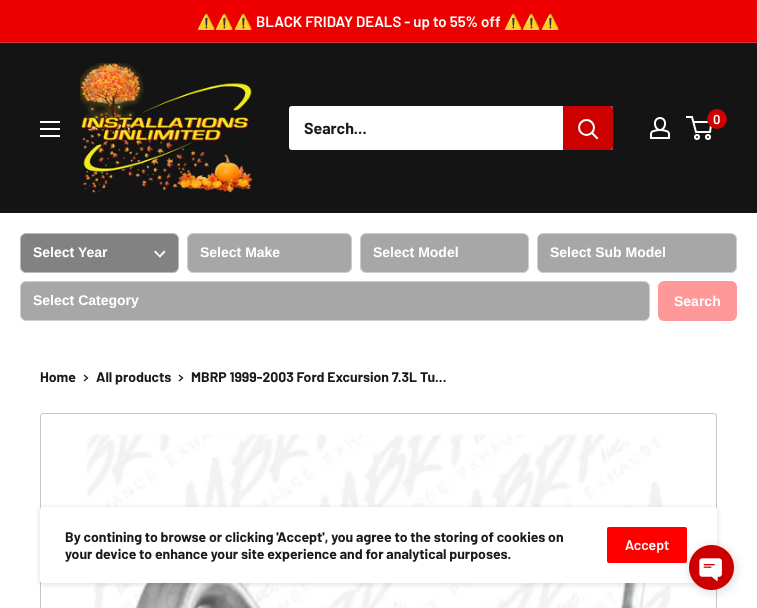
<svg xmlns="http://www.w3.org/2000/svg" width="757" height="608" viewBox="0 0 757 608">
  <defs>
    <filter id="blur1" x="-50%" y="-200%" width="200%" height="500%"><feGaussianBlur stdDeviation="2"/></filter>
    <filter id="blur2" x="-50%" y="-200%" width="200%" height="500%"><feGaussianBlur stdDeviation="4.5"/></filter>
    <filter id="blur3" x="-50%" y="-200%" width="200%" height="500%"><feGaussianBlur stdDeviation="5"/></filter>
  </defs>
  <rect width="100%" height="100%" fill="#ffffff"/>
  <rect x="0" y="0" width="757" height="42" fill="#ee0000"/>
  <rect x="0" y="42" width="757" height="1" fill="#d83548"/>
  <text x="197" y="27" font-family="Noto Color Emoji" font-size="15" font-weight="bold" fill="#ffffff">⚠️⚠️⚠️</text>
  <text x="256" y="27" font-family="Barlow" font-size="15" font-weight="600" fill="#ffffff">BLACK FRIDAY DEALS - up to 55% off</text>
  <text x="504" y="27" font-family="Noto Color Emoji" font-size="15" font-weight="bold" fill="#ffffff">⚠️⚠️⚠️</text>
  <rect x="0" y="43" width="757" height="170" fill="#141414"/>
  <image x="80" y="63" width="173" height="130" href="img1.png"/>
  <image x="650" y="117" width="20" height="22" href="img2.png"/>
  <circle cx="697" cy="137" r="2" fill="none" stroke="#ffffff" stroke-width="2"/>
  <circle cx="708" cy="137" r="2" fill="none" stroke="#ffffff" stroke-width="2"/>
  <path d="M693.5 122H711.5L710 132H696L692 117H686" fill="none" stroke="#ffffff" stroke-width="2"/>
  <circle cx="717" cy="119" r="10" fill="#cd0000"/>
  <text x="713" y="124" font-family="Barlow" font-size="13" font-weight="600" fill="#ffffff">0</text>
  <image x="40" y="121" width="20" height="16" href="img3.png"/>
  <rect x="289" y="106" width="324" height="44" rx="3" fill="#ffffff"/>
  <text x="304" y="134" font-family="Barlow" font-size="16" font-weight="bold" fill="#1a1a1a">Search...</text>
  <path d="M563 106H610C611.5 106 613 107.5 613 109V147C613 148.5 611.5 150 610 150H563Z" fill="#cd0000"/>
  <path d="M597 138L592 133" fill="none" stroke="#ffffff" stroke-width="2" stroke-linecap="square"/>
  <circle cx="586.5" cy="127.5" r="7.5" fill="none" stroke="#ffffff" stroke-width="2"/>
  <rect x="20.5" y="233.5" width="158" height="39" rx="5.5" fill="#828282" stroke="#b9b9b9"/>
  <text x="33" y="257" font-family="Liberation Sans" font-size="14" font-weight="bold" fill="#ffffff">Select Year</text>
  <path d="M164 250.5L165.5 252L160 257.5L158.5 256.5Z" fill="#fcfcfc"/>
  <path d="M155.5 250.5L161 256.5L160 257.5L154 252Z" fill="#fcfcfc"/>
  <rect x="187.5" y="233.5" width="164" height="39" rx="5.5" fill="#a7a7a7" stroke="#cecece"/>
  <text x="200" y="257" font-family="Liberation Sans" font-size="14" font-weight="bold" fill="#ffffff">Select Make</text>
  <rect x="360.5" y="233.5" width="168" height="39" rx="5.5" fill="#a7a7a7" stroke="#cecece"/>
  <text x="373" y="257" font-family="Liberation Sans" font-size="14" font-weight="bold" fill="#ffffff">Select Model</text>
  <rect x="537.5" y="233.5" width="199" height="39" rx="5.5" fill="#a7a7a7" stroke="#cecece"/>
  <text x="550" y="257" font-family="Liberation Sans" font-size="14" font-weight="bold" fill="#ffffff">Select Sub Model</text>
  <rect x="20.5" y="281.5" width="629" height="39" rx="5.5" fill="#a7a7a7" stroke="#cecece"/>
  <text x="33" y="305" font-family="Liberation Sans" font-size="14" font-weight="bold" fill="#ffffff">Select Category</text>
  <rect x="658" y="281" width="79" height="40" rx="6" fill="#ff9898"/>
  <text x="674" y="306" font-family="Liberation Sans" font-size="14" font-weight="bold" fill="#ffffff">Search</text>
  <text x="40" y="382" font-family="Barlow" font-size="14" font-weight="bold" fill="#1a1a1a">Home</text>
  <path d="M84.5 375.5L87.5 378L84.5 380.5" fill="none" stroke="#1a1a1a" stroke-width="1.3" stroke-linecap="square"/>
  <text x="96" y="382" font-family="Barlow" font-size="14" font-weight="bold" fill="#1a1a1a">All products</text>
  <path d="M179.5 375.5L182.5 378L179.5 380.5" fill="none" stroke="#1a1a1a" stroke-width="1.3" stroke-linecap="square"/>
  <text x="191" y="382" font-family="Barlow" font-size="14" font-weight="bold" fill="#1a1a1a">MBRP 1999-2003 Ford Excursion 7.3L Tu...</text>
  <rect x="40.5" y="413.5" width="676" height="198" rx="2.5" fill="none" stroke="#c6c8c8"/>
  <image x="86" y="434" width="585" height="174" href="img4.png"/>
  <rect x="39" y="507" width="679" height="78" rx="4" fill="#000000" fill-opacity="0.1" filter="url(#blur1)"/>
  <rect x="40" y="507" width="677" height="76" rx="3" fill="#ffffff"/>
  <text x="65" y="542" font-family="Barlow" font-size="14" font-weight="bold" fill="#1a1a1a">By contining to browse or clicking 'Accept', you agree to the storing of cookies on</text>
  <text x="65" y="559" font-family="Barlow" font-size="14" font-weight="bold" fill="#1a1a1a">your device to enhance your site experience and for analytical purposes.</text>
  <rect x="607" y="527" width="80" height="36" rx="2" fill="#ff0000"/>
  <text x="625" y="550" font-family="Barlow" font-size="14" font-weight="600" fill="#ffffff">Accept</text>
  <rect x="689" y="545" width="49" height="49" rx="24.5" fill="#000000" fill-opacity="0.07" filter="url(#blur2)"/>
  <rect x="689" y="547" width="45" height="45" rx="22.5" fill="#000000" fill-opacity="0.05" filter="url(#blur3)"/>
  <image x="689" y="545" width="45" height="45" href="img5.png"/>
</svg>
